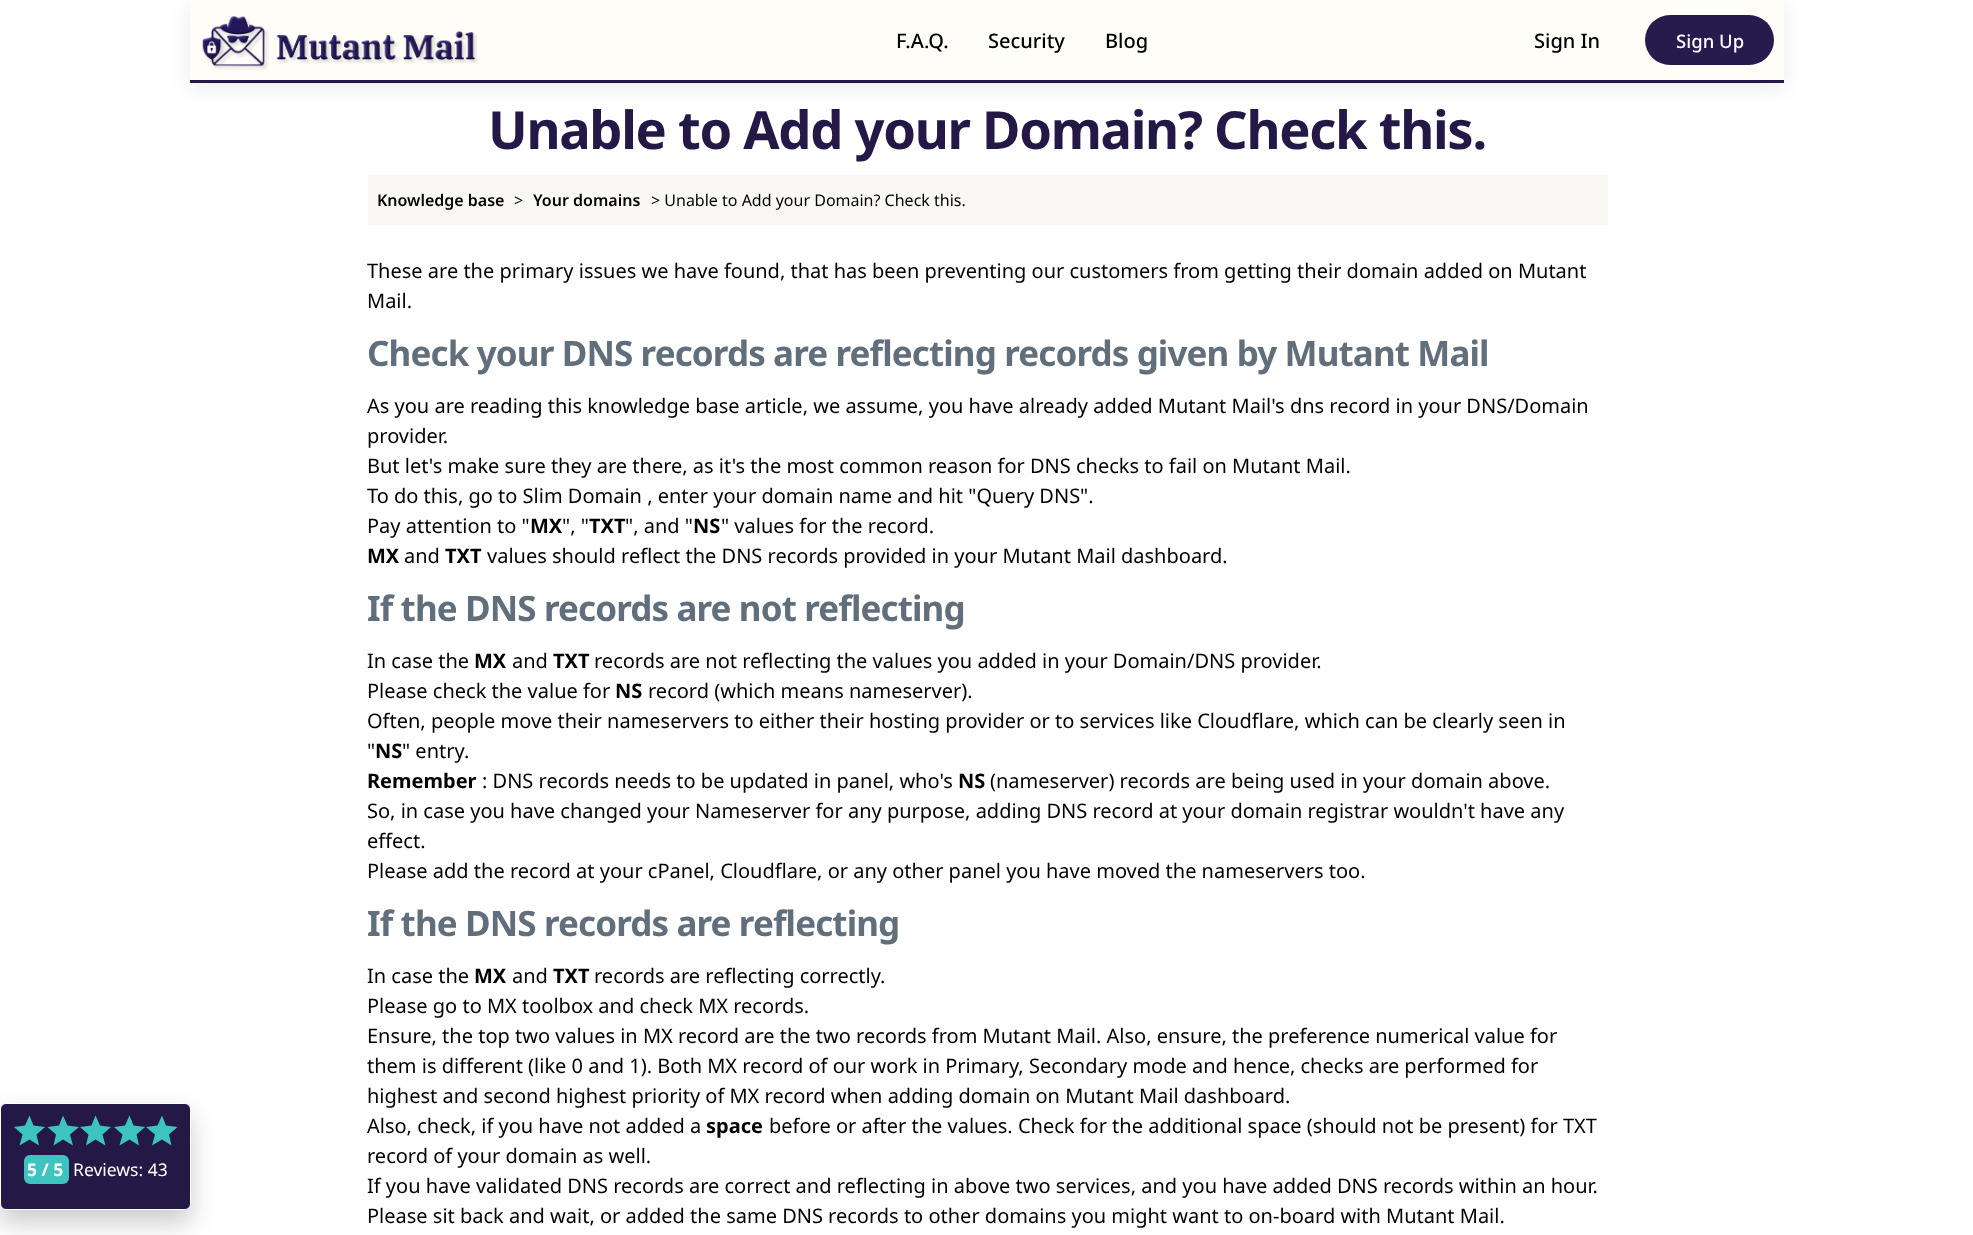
<svg xmlns="http://www.w3.org/2000/svg" width="1973" height="1235" viewBox="0 0 1973 1235">
  <defs>
    <filter id="blur1" x="-50%" y="-200%" width="200%" height="500%"><feGaussianBlur stdDeviation="9.5"/></filter>
    <filter id="blur2" x="-50%" y="-200%" width="200%" height="500%"><feGaussianBlur stdDeviation="12.5"/></filter>
  </defs>
  <rect width="100%" height="100%" fill="#ffffff"/>
  <rect x="190" y="5" width="1594" height="83" fill="#000000" fill-opacity="0.08" filter="url(#blur1)"/>
  <rect x="190" y="80" width="1594" height="3" fill="#231846"/>
  <rect x="190" y="0" width="1594" height="80" fill="#fffdf8"/>
  <image x="202" y="16" width="276" height="54" href="img1.png"/>
  <text x="896" y="48" font-family="Noto Sans" font-size="20" font-weight="500" fill="#000000">F.A.Q.</text>
  <text x="988" y="48" font-family="Noto Sans" font-size="20" font-weight="500" fill="#000000">Security</text>
  <text x="1105" y="48" font-family="Noto Sans" font-size="20" font-weight="500" fill="#000000">Blog</text>
  <text x="1534" y="48" font-family="Noto Sans" font-size="20" font-weight="500" fill="#000000">Sign In</text>
  <rect x="1645" y="15" width="129" height="50" rx="25" fill="#271a4d"/>
  <text x="1676" y="48" font-family="Noto Sans" font-size="18.5" font-weight="500" fill="#ffffff">Sign Up</text>
  <rect x="0" y="1115" width="191" height="108" rx="6" fill="#000000" fill-opacity="0.2" filter="url(#blur2)"/>
  <rect x="0.5" y="1103.5" width="190" height="106" rx="5.5" fill="#231846" stroke="#ffffff"/>
  <path d="M33.5 1125.5L45 1127L36.5 1134.5L39 1145.5L29.5 1139.5L19.5 1145.5L22.5 1134.5L14 1127L25 1125.5L29.5 1115.5Z" fill="#3dc3c0"/>
  <path d="M67.5 1125.5L79 1127L70 1134.5L73 1145.5L63 1139.5L53.5 1145.5L56 1134.5L47.5 1127L59 1125.5L63 1115.5ZM100 1125.5L111 1127L102.5 1134.5L105.5 1145.5L95.5 1139.5L86 1145.5L88.5 1134.5L80 1127L91.5 1125.5L95.5 1115.5Z" fill="#3dc3c0"/>
  <path d="M133.5 1125.5L145 1127L136.5 1134.5L139 1145.5L129.5 1139.5L119.5 1145.5L122.5 1134.5L114 1127L125 1125.5L129.5 1115.5Z" fill="#3dc3c0"/>
  <path d="M166 1125.5L177.5 1127L169 1134.5L171.5 1145.5L162 1139.5L152 1145.5L155 1134.5L146 1127L157.5 1125.5L162 1115.5Z" fill="#3dc3c0"/>
  <rect x="24" y="1155" width="45" height="29" rx="6" fill="#3dc3c0"/>
  <text x="27" y="1176" font-family="Noto Sans" font-size="17.5" font-weight="bold" fill="#ffffff">5 / 5</text>
  <text x="73" y="1176" font-family="Noto Sans" font-size="17.5" fill="#ffffff">Reviews: 43</text>
  <text x="488" y="149" font-family="Noto Sans" font-size="52.5" font-weight="bold" letter-spacing="-1.3" fill="#231846">Unable to Add your Domain? Check this.</text>
  <rect x="368" y="175" width="1240" height="50" fill="#faf8f5"/>
  <text x="377" y="206" font-family="Noto Sans" font-size="16" font-weight="600" fill="#000000">Knowledge base</text>
  <text x="514" y="206" font-family="Noto Sans" font-size="16" fill="#000000">&gt;</text>
  <text x="533" y="206" font-family="Noto Sans" font-size="16" font-weight="600" fill="#000000">Your domains</text>
  <text x="651" y="206" font-family="Noto Sans" font-size="16" fill="#000000">&gt; Unable to Add your Domain? Check this.</text>
  <text x="367" y="278" font-family="Noto Sans" font-size="20" fill="#000000">These are the primary issues we have found, that has been preventing our customers from getting their domain added on Mutant</text>
  <text x="367" y="308" font-family="Noto Sans" font-size="20" fill="#000000">Mail.</text>
  <text x="367" y="366" font-family="Noto Sans" font-size="35" font-weight="bold" letter-spacing="-0.88" fill="#616e7c">Check your DNS records are reflecting records given by Mutant Mail</text>
  <text x="367" y="413" font-family="Noto Sans" font-size="20" fill="#000000">As you are reading this knowledge base article, we assume, you have already added Mutant Mail's dns record in your DNS/Domain</text>
  <text x="367" y="443" font-family="Noto Sans" font-size="20" fill="#000000">provider.</text>
  <text x="367" y="473" font-family="Noto Sans" font-size="20" fill="#000000">But let's make sure they are there, as it's the most common reason for DNS checks to fail on Mutant Mail.</text>
  <text x="367" y="503" font-family="Noto Sans" font-size="20" fill="#000000">To do this, go to Slim Domain , enter your domain name and hit "Query DNS".</text>
  <text x="367" y="533" font-family="Noto Sans" font-size="20" fill="#000000">Pay attention to "</text>
  <text x="530" y="533" font-family="Noto Sans" font-size="20" font-weight="bold" fill="#000000">MX</text>
  <text x="562" y="533" font-family="Noto Sans" font-size="20" fill="#000000">", "</text>
  <text x="589" y="533" font-family="Noto Sans" font-size="20" font-weight="bold" fill="#000000">TXT</text>
  <text x="625" y="533" font-family="Noto Sans" font-size="20" fill="#000000">", and "</text>
  <text x="693" y="533" font-family="Noto Sans" font-size="20" font-weight="bold" fill="#000000">NS</text>
  <text x="721" y="533" font-family="Noto Sans" font-size="20" fill="#000000">" values for the record.</text>
  <text x="367" y="563" font-family="Noto Sans" font-size="20" font-weight="bold" fill="#000000">MX</text>
  <text x="404" y="563" font-family="Noto Sans" font-size="20" fill="#000000">and</text>
  <text x="445" y="563" font-family="Noto Sans" font-size="20" font-weight="bold" fill="#000000">TXT</text>
  <text x="487" y="563" font-family="Noto Sans" font-size="20" fill="#000000">values should reflect the DNS records provided in your Mutant Mail dashboard.</text>
  <text x="367" y="621" font-family="Noto Sans" font-size="35" font-weight="bold" letter-spacing="-0.88" fill="#616e7c">If the DNS records are not reflecting</text>
  <text x="367" y="668" font-family="Noto Sans" font-size="20" fill="#000000">In case the</text>
  <text x="474" y="668" font-family="Noto Sans" font-size="20" font-weight="bold" fill="#000000">MX</text>
  <text x="512" y="668" font-family="Noto Sans" font-size="20" fill="#000000">and</text>
  <text x="553" y="668" font-family="Noto Sans" font-size="20" font-weight="bold" fill="#000000">TXT</text>
  <text x="594" y="668" font-family="Noto Sans" font-size="20" fill="#000000">records are not reflecting the values you added in your Domain/DNS provider.</text>
  <text x="367" y="698" font-family="Noto Sans" font-size="20" fill="#000000">Please check the value for</text>
  <text x="615" y="698" font-family="Noto Sans" font-size="20" font-weight="bold" fill="#000000">NS</text>
  <text x="648" y="698" font-family="Noto Sans" font-size="20" fill="#000000">record (which means nameserver).</text>
  <text x="367" y="728" font-family="Noto Sans" font-size="20" fill="#000000">Often, people move their nameservers to either their hosting provider or to services like Cloudflare, which can be clearly seen in</text>
  <text x="367" y="758" font-family="Noto Sans" font-size="20" fill="#000000">"</text>
  <text x="375" y="758" font-family="Noto Sans" font-size="20" font-weight="bold" fill="#000000">NS</text>
  <text x="402" y="758" font-family="Noto Sans" font-size="20" fill="#000000">" entry.</text>
  <text x="367" y="788" font-family="Noto Sans" font-size="20" font-weight="bold" fill="#000000">Remember</text>
  <text x="482" y="788" font-family="Noto Sans" font-size="20" fill="#000000">: DNS records needs to be updated in panel, who's</text>
  <text x="958" y="788" font-family="Noto Sans" font-size="20" font-weight="bold" fill="#000000">NS</text>
  <text x="990" y="788" font-family="Noto Sans" font-size="20" fill="#000000">(nameserver) records are being used in your domain above.</text>
  <text x="367" y="818" font-family="Noto Sans" font-size="20" fill="#000000">So, in case you have changed your Nameserver for any purpose, adding DNS record at your domain registrar wouldn't have any</text>
  <text x="367" y="848" font-family="Noto Sans" font-size="20" fill="#000000">effect.</text>
  <text x="367" y="878" font-family="Noto Sans" font-size="20" fill="#000000">Please add the record at your cPanel, Cloudflare, or any other panel you have moved the nameservers too.</text>
  <text x="367" y="936" font-family="Noto Sans" font-size="35" font-weight="bold" letter-spacing="-0.88" fill="#616e7c">If the DNS records are reflecting</text>
  <text x="367" y="983" font-family="Noto Sans" font-size="20" fill="#000000">In case the</text>
  <text x="474" y="983" font-family="Noto Sans" font-size="20" font-weight="bold" fill="#000000">MX</text>
  <text x="512" y="983" font-family="Noto Sans" font-size="20" fill="#000000">and</text>
  <text x="553" y="983" font-family="Noto Sans" font-size="20" font-weight="bold" fill="#000000">TXT</text>
  <text x="594" y="983" font-family="Noto Sans" font-size="20" fill="#000000">records are reflecting correctly.</text>
  <text x="367" y="1013" font-family="Noto Sans" font-size="20" fill="#000000">Please go to MX toolbox and check MX records.</text>
  <text x="367" y="1043" font-family="Noto Sans" font-size="20" fill="#000000">Ensure, the top two values in MX record are the two records from Mutant Mail. Also, ensure, the preference numerical value for</text>
  <text x="367" y="1073" font-family="Noto Sans" font-size="20" fill="#000000">them is different (like 0 and 1). Both MX record of our work in Primary, Secondary mode and hence, checks are performed for</text>
  <text x="367" y="1103" font-family="Noto Sans" font-size="20" fill="#000000">highest and second highest priority of MX record when adding domain on Mutant Mail dashboard.</text>
  <text x="367" y="1133" font-family="Noto Sans" font-size="20" fill="#000000">Also, check, if you have not added a</text>
  <text x="706" y="1133" font-family="Noto Sans" font-size="20" font-weight="bold" fill="#000000">space</text>
  <text x="769" y="1133" font-family="Noto Sans" font-size="20" fill="#000000">before or after the values. Check for the additional space (should not be present) for TXT</text>
  <text x="367" y="1163" font-family="Noto Sans" font-size="20" fill="#000000">record of your domain as well.</text>
  <text x="367" y="1193" font-family="Noto Sans" font-size="20" fill="#000000">If you have validated DNS records are correct and reflecting in above two services, and you have added DNS records within an hour.</text>
  <text x="367" y="1223" font-family="Noto Sans" font-size="20" fill="#000000">Please sit back and wait, or added the same DNS records to other domains you might want to on-board with Mutant Mail.</text>
</svg>
